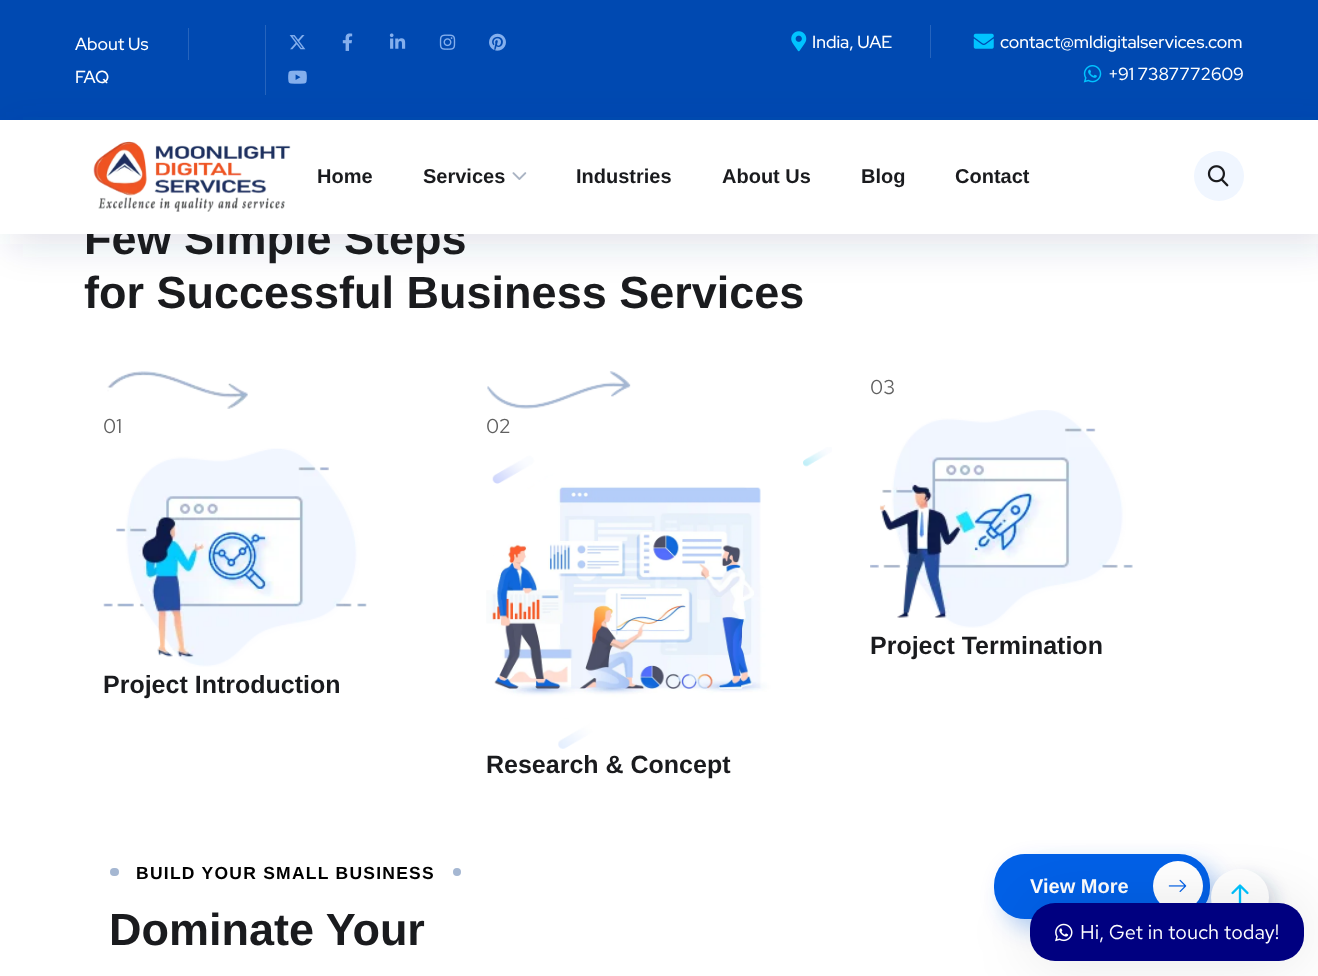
<svg xmlns="http://www.w3.org/2000/svg" width="1318" height="976" viewBox="0 0 1318 976">
  <defs>
    <filter id="blur1" x="-50%" y="-200%" width="200%" height="500%"><feGaussianBlur stdDeviation="19"/></filter>
    <filter id="blur2" x="-50%" y="-200%" width="200%" height="500%"><feGaussianBlur stdDeviation="11"/></filter>
    <filter id="blur3" x="-50%" y="-200%" width="200%" height="500%"><feGaussianBlur stdDeviation="8"/></filter>
    <filter id="blur4" x="-50%" y="-200%" width="200%" height="500%"><feGaussianBlur stdDeviation="31"/></filter>
  </defs>
  <rect width="100%" height="100%" fill="#ffffff"/>
  <rect x="0" y="0" width="1318" height="120" fill="#0049b1"/>
  <text x="75" y="50" font-family="Red Hat Display" font-size="17.5" font-weight="500" fill="#ffffff">About Us</text>
  <rect x="188" y="28" width="1" height="32" fill="#2664bd"/>
  <text x="75" y="83" font-family="Red Hat Display" font-size="17.5" font-weight="500" fill="#ffffff">FAQ</text>
  <rect x="265" y="25" width="1" height="70" fill="#2664bd"/>
  <image x="289" y="35" width="17" height="15" href="img1.png"/>
  <image x="342" y="33" width="11" height="18" href="img2.png"/>
  <image x="389" y="33" width="17" height="16" href="img3.png"/>
  <image x="439" y="34" width="17" height="16" href="img4.png"/>
  <image x="489" y="33" width="17" height="18" href="img5.png"/>
  <image x="288" y="70" width="19" height="14" href="img6.png"/>
  <image x="791" y="31" width="16" height="21" href="img7.png"/>
  <text x="812" y="48" font-family="Red Hat Display" font-size="17.5" font-weight="500" fill="#ffffff">India, UAE</text>
  <rect x="930" y="25" width="1" height="33" fill="#2664bd"/>
  <image x="973" y="33" width="21" height="16" href="img8.png"/>
  <text x="1000" y="48" font-family="Red Hat Display" font-size="17.5" font-weight="500" fill="#ffffff">contact@mldigitalservices.com</text>
  <image x="1083" y="65" width="19" height="18" href="img9.png"/>
  <text x="1108" y="80" font-family="Red Hat Display" font-size="17.5" font-weight="500" fill="#ffffff">+91 7387772609</text>
  <rect x="10" y="130" width="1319" height="114" fill="#2a4371" fill-opacity="0.15" filter="url(#blur1)"/>
  <text x="84" y="254" font-family="Liberation Sans" font-size="45" font-weight="bold" fill="#1a1b1e">Few Simple Steps</text>
  <rect x="0" y="120" width="1318" height="114" fill="#ffffff"/>
  <image x="93" y="141" width="198" height="71" href="img10.png"/>
  <text x="317" y="183" font-family="Liberation Sans" font-size="20" font-weight="bold" fill="#1a1b1e">Home</text>
  <text x="423" y="183" font-family="Liberation Sans" font-size="20" font-weight="bold" fill="#1a1b1e">Services</text>
  <image x="512" y="172" width="15" height="8" href="img11.png"/>
  <text x="576" y="183" font-family="Liberation Sans" font-size="20" font-weight="bold" fill="#1a1b1e">Industries</text>
  <text x="722" y="183" font-family="Liberation Sans" font-size="20" font-weight="bold" fill="#1a1b1e">About Us</text>
  <text x="861" y="183" font-family="Liberation Sans" font-size="20" font-weight="bold" fill="#1a1b1e">Blog</text>
  <text x="955" y="183" font-family="Liberation Sans" font-size="20" font-weight="bold" fill="#1a1b1e">Contact</text>
  <circle cx="1219" cy="176" r="25" fill="#f0f6ff"/>
  <image x="1207" y="165" width="22" height="22" href="img12.png"/>
  <text x="84" y="308" font-family="Liberation Sans" font-size="45" font-weight="bold" fill="#1a1b1e">for Successful Business Services</text>
  <image x="107" y="371" width="141" height="38" href="img13.png"/>
  <text x="103" y="433" font-family="Red Hat Text" font-size="20" fill="#606060">01</text>
  <image x="103" y="448" width="264" height="219" href="img14.png"/>
  <text x="103" y="693" font-family="Liberation Sans" font-size="25" font-weight="bold" fill="#1a1b1e">Project Introduction</text>
  <image x="487" y="371" width="144" height="38" href="img15.png"/>
  <text x="486" y="433" font-family="Red Hat Text" font-size="20" fill="#606060">02</text>
  <image x="486" y="447" width="346" height="302" href="img16.png"/>
  <text x="486" y="773" font-family="Liberation Sans" font-size="25" font-weight="bold" fill="#1a1b1e">Research &amp; Concept</text>
  <text x="870" y="394" font-family="Red Hat Text" font-size="20" fill="#606060">03</text>
  <image x="870" y="410" width="263" height="218" href="img17.png"/>
  <text x="870" y="654" font-family="Liberation Sans" font-size="25" font-weight="bold" fill="#1a1b1e">Project Termination</text>
  <rect x="110" y="868" width="9" height="8" rx="4" fill="#a5b7d2"/>
  <text x="136" y="879" font-family="Liberation Sans" font-size="17.5" font-weight="bold" letter-spacing="1.25" fill="#000000">BUILD YOUR SMALL BUSINESS</text>
  <circle cx="457" cy="872" r="4" fill="#a5b7d2"/>
  <text x="109" y="945" font-family="Liberation Sans" font-size="45" font-weight="bold" fill="#1a1b1e">Dominate Your</text>
  <rect x="1004" y="864" width="216" height="65" rx="31" fill="#0160e7" fill-opacity="0.3" filter="url(#blur2)"/>
  <rect x="994" y="854" width="216" height="65" rx="31" fill="#0160e7"/>
  <text x="1030" y="893" font-family="Liberation Sans" font-size="20" font-weight="bold" fill="#ffffff">View More</text>
  <circle cx="1178" cy="886" r="25" fill="#ffffff"/>
  <image x="1168" y="879" width="19" height="13" href="img18.png"/>
  <rect x="1219" y="876" width="57" height="58" rx="28.5" fill="#2a4371" fill-opacity="0.2" filter="url(#blur3)"/>
  <rect x="1211" y="869" width="58" height="57" rx="28.5" fill="#ffffff"/>
  <image x="1231" y="884" width="18" height="19" href="img19.png"/>
  <rect x="1030" y="903" width="274" height="58" rx="25" fill="#000000" fill-opacity="0.1" filter="url(#blur4)"/>
  <rect x="1030" y="903" width="274" height="58" rx="25" fill="#000080"/>
  <image x="1055" y="923" width="18" height="19" href="img20.png"/>
  <text x="1080" y="939" font-family="Red Hat Text" font-size="20" fill="#ffffff">Hi, Get in touch today!</text>
</svg>
